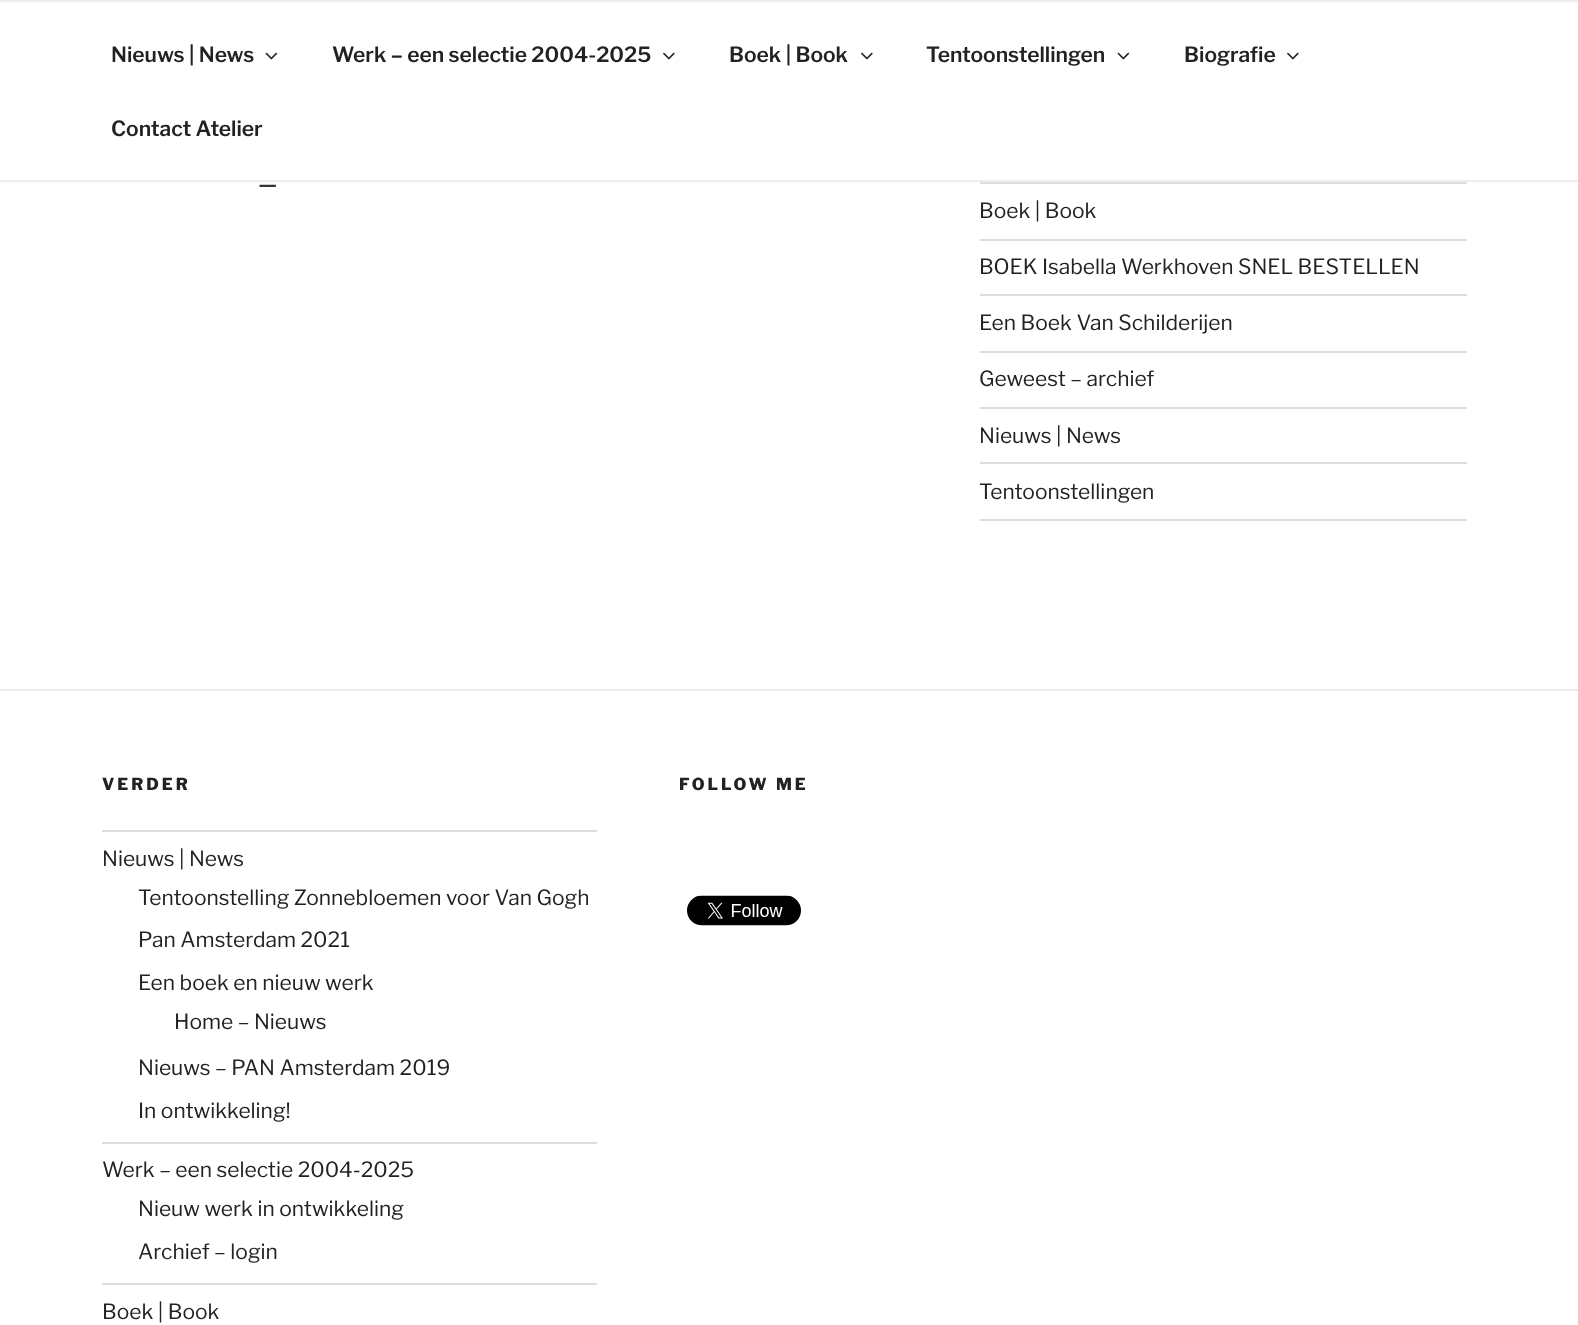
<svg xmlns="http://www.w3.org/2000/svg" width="1578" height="1325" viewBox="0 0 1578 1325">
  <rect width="100%" height="100%" fill="#ffffff"/>
  <rect x="0" y="0" width="1578" height="2" fill="#eeeeee"/>
  <rect x="0" y="180" width="1578" height="2" fill="#eeeeee"/>
  <text x="111" y="62" font-family="'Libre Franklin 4'" font-size="21" font-weight="100" fill="#222222">Nieuws | News</text>
  <image x="265" y="52" width="13" height="8" href="img1.png"/>
  <text x="332" y="62" font-family="'Libre Franklin 4'" font-size="21" font-weight="100" fill="#222222">Werk – een selectie 2004-2025</text>
  <image x="663" y="52" width="12" height="8" href="img2.png"/>
  <text x="729" y="62" font-family="'Libre Franklin 4'" font-size="21" font-weight="100" fill="#222222">Boek | Book</text>
  <image x="861" y="52" width="12" height="8" href="img2.png"/>
  <text x="926" y="62" font-family="'Libre Franklin 4'" font-size="21" font-weight="100" fill="#222222">Tentoonstellingen</text>
  <image x="1117" y="52" width="13" height="8" href="img1.png"/>
  <text x="1184" y="62" font-family="'Libre Franklin 4'" font-size="21" font-weight="100" fill="#222222">Biografie</text>
  <image x="1287" y="52" width="12" height="8" href="img2.png"/>
  <text x="111" y="136" font-family="'Libre Franklin 4'" font-size="21" font-weight="100" fill="#222222">Contact Atelier</text>
  <text x="257" y="196" font-family="Libre Franklin" font-size="39" font-weight="100" fill="#333333">–</text>
  <rect x="980" y="182" width="487" height="2" fill="#dddddd"/>
  <rect x="980" y="239" width="487" height="2" fill="#dddddd"/>
  <text x="979" y="218" font-family="'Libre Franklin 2'" font-size="21" font-weight="100" fill="#222222">Boek | Book</text>
  <rect x="980" y="294" width="487" height="2" fill="#dddddd"/>
  <text x="979" y="274" font-family="'Libre Franklin 2'" font-size="21" font-weight="100" fill="#222222">BOEK Isabella Werkhoven SNEL BESTELLEN</text>
  <rect x="980" y="351" width="487" height="2" fill="#dddddd"/>
  <text x="979" y="330" font-family="'Libre Franklin 2'" font-size="21" font-weight="100" fill="#222222">Een Boek Van Schilderijen</text>
  <rect x="980" y="407" width="487" height="2" fill="#dddddd"/>
  <text x="979" y="386" font-family="'Libre Franklin 2'" font-size="21" font-weight="100" fill="#222222">Geweest – archief</text>
  <rect x="980" y="462" width="487" height="2" fill="#dddddd"/>
  <text x="979" y="443" font-family="'Libre Franklin 2'" font-size="21" font-weight="100" fill="#222222">Nieuws | News</text>
  <rect x="980" y="519" width="487" height="2" fill="#dddddd"/>
  <text x="979" y="499" font-family="'Libre Franklin 2'" font-size="21" font-weight="100" fill="#222222">Tentoonstellingen</text>
  <rect x="0" y="689" width="1578" height="2" fill="#eeeeee"/>
  <text x="102" y="790" font-family="'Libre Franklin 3'" font-size="16.5" font-weight="100" letter-spacing="3" fill="#222222">VERDER</text>
  <rect x="102" y="830" width="495" height="2" fill="#dddddd"/>
  <rect x="102" y="1142" width="495" height="2" fill="#dddddd"/>
  <text x="102" y="866" font-family="'Libre Franklin 2'" font-size="21" font-weight="100" fill="#222222">Nieuws | News</text>
  <text x="138" y="905" font-family="'Libre Franklin 2'" font-size="21" font-weight="100" fill="#222222">Tentoonstelling Zonnebloemen voor Van Gogh</text>
  <text x="138" y="947" font-family="'Libre Franklin 2'" font-size="21" font-weight="100" fill="#222222">Pan Amsterdam 2021</text>
  <text x="138" y="990" font-family="'Libre Franklin 2'" font-size="21" font-weight="100" fill="#222222">Een boek en nieuw werk</text>
  <text x="174" y="1029" font-family="'Libre Franklin 2'" font-size="21" font-weight="100" fill="#222222">Home – Nieuws</text>
  <text x="138" y="1075" font-family="'Libre Franklin 2'" font-size="21" font-weight="100" fill="#222222">Nieuws – PAN Amsterdam 2019</text>
  <text x="138" y="1118" font-family="'Libre Franklin 2'" font-size="21" font-weight="100" fill="#222222">In ontwikkeling!</text>
  <rect x="102" y="1283" width="495" height="2" fill="#dddddd"/>
  <text x="102" y="1177" font-family="'Libre Franklin 2'" font-size="21" font-weight="100" fill="#222222">Werk – een selectie 2004-2025</text>
  <text x="138" y="1216" font-family="'Libre Franklin 2'" font-size="21" font-weight="100" fill="#222222">Nieuw werk in ontwikkeling</text>
  <text x="138" y="1259" font-family="'Libre Franklin 2'" font-size="21" font-weight="100" fill="#222222">Archief – login</text>
  <text x="102" y="1319" font-family="'Libre Franklin 2'" font-size="21" font-weight="100" fill="#222222">Boek | Book</text>
  <text x="679" y="790" font-family="'Libre Franklin 3'" font-size="16.5" font-weight="100" letter-spacing="3" fill="#222222">FOLLOW ME</text>
  <image x="687" y="895" width="114" height="31" href="img3.png"/>
</svg>
